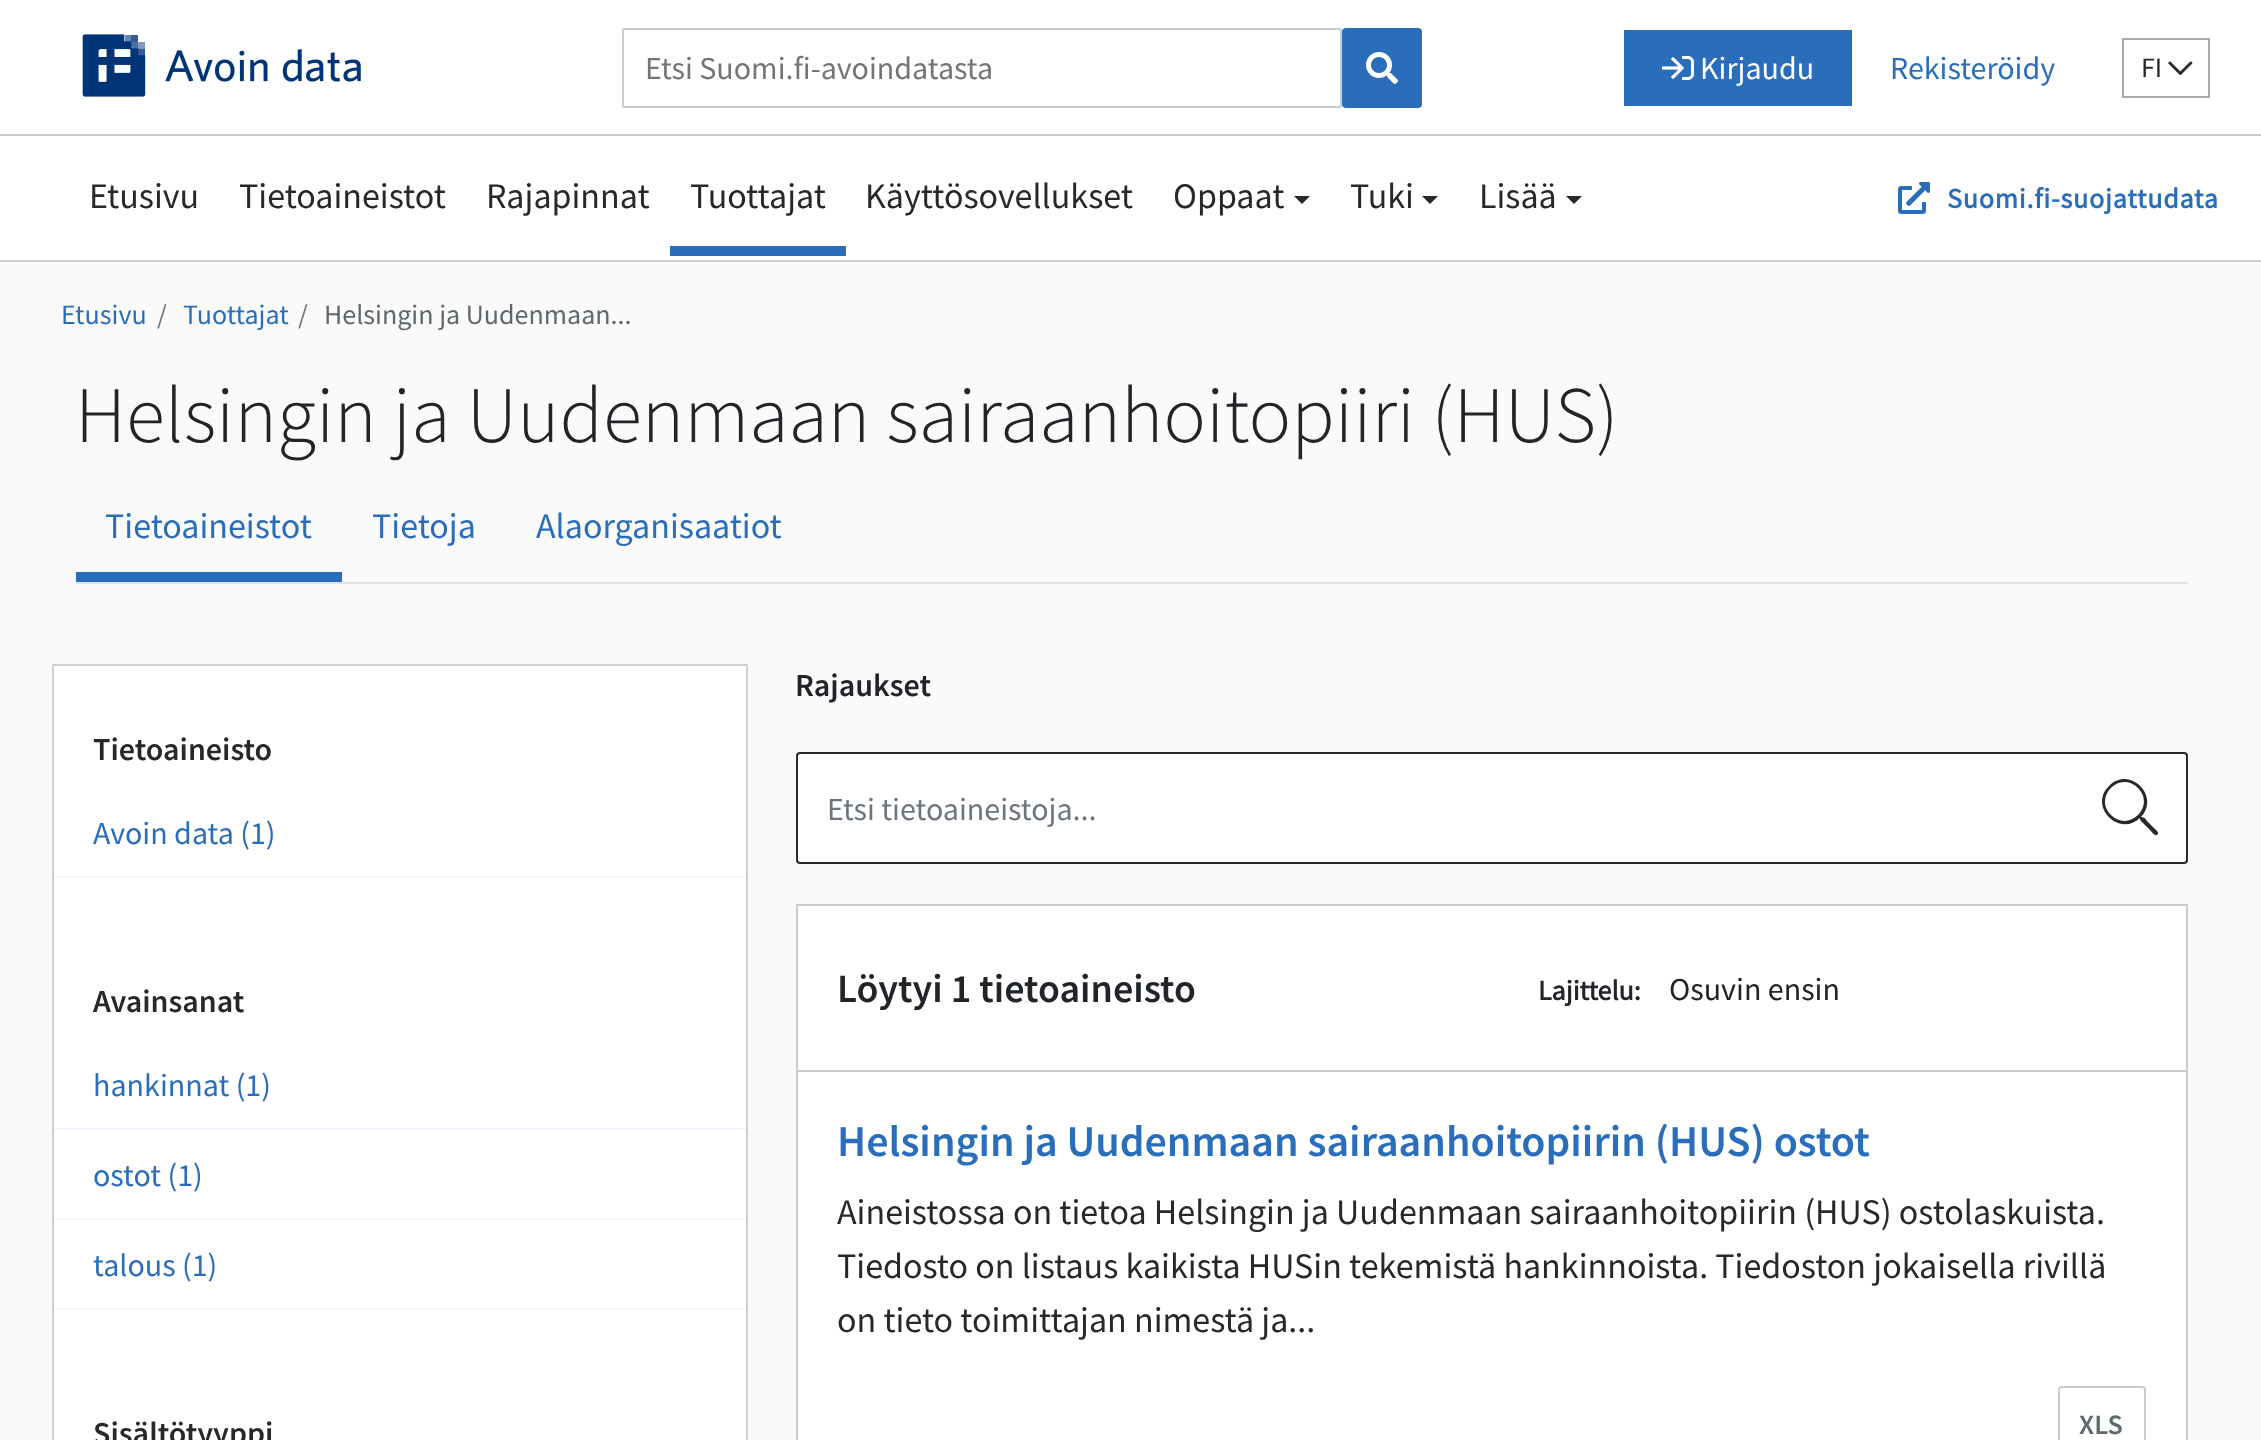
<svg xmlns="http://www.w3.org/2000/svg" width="2261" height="1440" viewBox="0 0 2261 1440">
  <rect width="100%" height="100%" fill="#fafafa"/>
  <rect x="0" y="0" width="2261" height="134" fill="#ffffff"/>
  <image x="82" y="34" width="279" height="63" href="img1.png"/>
  <rect x="623" y="29" width="718" height="78" rx="1" fill="none" stroke="#c8cdd0" stroke-width="2"/>
  <text x="645" y="79" font-family="Source Sans Pro" font-size="32" fill="#757575">Etsi Suomi.fi-avoindatasta</text>
  <rect x="1342" y="28" width="80" height="80" rx="4" fill="#2a6ebb"/>
  <image x="1366" y="52" width="32" height="32" href="img2.png"/>
  <rect x="1624" y="30" width="228" height="76" fill="#2a6ebb"/>
  <image x="1662" y="56" width="32" height="24" href="img3.png"/>
  <text x="1700" y="79" font-family="Source Sans Pro" font-size="32" fill="#ffffff">Kirjaudu</text>
  <text x="1890" y="79" font-family="Source Sans Pro" font-size="32" fill="#2a6ebb">Rekisteröidy</text>
  <rect x="2123" y="39" width="86" height="58" fill="none" stroke="#a5acb0" stroke-width="2"/>
  <text x="2141" y="77" font-family="Source Sans Pro" font-size="28" fill="#282828">FI</text>
  <image x="2168" y="61" width="25" height="15" href="img4.png"/>
  <rect x="0" y="136" width="2261" height="124" fill="#ffffff"/>
  <rect x="0" y="134" width="2261" height="2" fill="#c8cdd0"/>
  <rect x="0" y="260" width="2261" height="2" fill="#c8cdd0"/>
  <text x="89" y="208" font-family="Source Sans Pro" font-size="36" fill="#282828">Etusivu</text>
  <text x="239" y="208" font-family="Source Sans Pro" font-size="36" fill="#282828">Tietoaineistot</text>
  <text x="486" y="208" font-family="Source Sans Pro" font-size="36" fill="#282828">Rajapinnat</text>
  <rect x="670" y="246" width="176" height="10" fill="#2a6ebb"/>
  <text x="690" y="208" font-family="Source Sans Pro" font-size="36" fill="#282828">Tuottajat</text>
  <text x="865" y="208" font-family="Source Sans Pro" font-size="36" fill="#282828">Käyttösovellukset</text>
  <text x="1173" y="208" font-family="Source Sans Pro" font-size="36" fill="#282828">Oppaat</text>
  <path d="M1294 196H1310L1302 204Z" fill="#292929"/>
  <text x="1350" y="208" font-family="Source Sans Pro" font-size="36" fill="#282828">Tuki</text>
  <path d="M1422 196H1438L1430 204Z" fill="#292929"/>
  <text x="1479" y="208" font-family="Source Sans Pro" font-size="36" fill="#282828">Lisää</text>
  <path d="M1566 196H1582L1574 204Z" fill="#292929"/>
  <image x="1898" y="182" width="32" height="32" href="img5.png"/>
  <text x="1947" y="208" font-family="Source Sans Pro" font-size="28" font-weight="bold" letter-spacing="0.8" fill="#2a6ebb">Suomi.fi-suojattudata</text>
  <text x="61" y="324" font-family="Source Sans Pro" font-size="28" fill="#2a6ebb">Etusivu</text>
  <text x="157" y="324" font-family="Source Sans Pro" font-size="28" fill="#6c757d">/</text>
  <text x="183" y="324" font-family="Source Sans Pro" font-size="28" fill="#2a6ebb">Tuottajat</text>
  <text x="298" y="324" font-family="Source Sans Pro" font-size="28" fill="#6c757d">/</text>
  <text x="324" y="324" font-family="Source Sans Pro" font-size="28" fill="#5f686d">Helsingin ja Uudenmaan...</text>
  <text x="75" y="442" font-family="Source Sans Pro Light" font-size="80" font-weight="300" fill="#212529">Helsingin ja Uudenmaan sairaanhoitopiiri (HUS)</text>
  <rect x="76" y="582" width="2112" height="2" fill="#dee2e6"/>
  <rect x="76" y="572" width="266" height="10" fill="#2a6ebb"/>
  <text x="105" y="538" font-family="Source Sans Pro" font-size="36" fill="#2a6ebb">Tietoaineistot</text>
  <text x="372" y="538" font-family="Source Sans Pro" font-size="36" fill="#2a6ebb">Tietoja</text>
  <text x="536" y="538" font-family="Source Sans Pro" font-size="36" fill="#2a6ebb">Alaorganisaatiot</text>
  <rect x="53" y="665" width="694" height="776" fill="#ffffff" stroke="#ced2d5" stroke-width="2"/>
  <text x="93" y="760" font-family="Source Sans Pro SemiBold" font-size="32" font-weight="600" fill="#282828">Tietoaineisto</text>
  <rect x="54" y="876" width="692" height="2" fill="#f0f6ff"/>
  <text x="93" y="844" font-family="Source Sans Pro" font-size="32" fill="#2a6ebb">Avoin data (1)</text>
  <text x="93" y="1012" font-family="Source Sans Pro SemiBold" font-size="32" font-weight="600" fill="#282828">Avainsanat</text>
  <rect x="54" y="1128" width="692" height="2" fill="#f0f6ff"/>
  <text x="93" y="1096" font-family="Source Sans Pro" font-size="32" fill="#2a6ebb">hankinnat (1)</text>
  <rect x="54" y="1218" width="692" height="2" fill="#f0f6ff"/>
  <text x="93" y="1186" font-family="Source Sans Pro" font-size="32" fill="#2a6ebb">ostot (1)</text>
  <rect x="54" y="1308" width="692" height="2" fill="#f0f6ff"/>
  <text x="93" y="1276" font-family="Source Sans Pro" font-size="32" fill="#2a6ebb">talous (1)</text>
  <text x="93" y="1444" font-family="Source Sans Pro SemiBold" font-size="32" font-weight="600" fill="#282828">Sisältötyyppi</text>
  <text x="795" y="696" font-family="Source Sans Pro SemiBold" font-size="32" font-weight="600" fill="#212529">Rajaukset</text>
  <rect x="797" y="753" width="1390" height="110" rx="3" fill="#ffffff" stroke="#292929" stroke-width="2"/>
  <text x="827" y="820" font-family="Source Sans Pro" font-size="32" fill="#6c757d">Etsi tietoaineistoja...</text>
  <path d="M2158 832V833C2157 839 2151 831 2150 830L2143 823C2141 821 2140 821 2140 818C2119 838 2088 806 2109 786C2129 765 2161 796 2141 817C2145 817 2146 820 2148 822ZM2111 815C2129 833 2156 806 2138 788C2120 770 2093 797 2111 815Z" fill="#292929"/>
  <rect x="797" y="905" width="1390" height="166" fill="#ffffff" stroke="#c9cdcf" stroke-width="2"/>
  <text x="837" y="1002" font-family="Source Sans Pro SemiBold" font-size="40" font-weight="600" fill="#212529">Löytyi 1 tietoaineisto</text>
  <text x="1538" y="1000" font-family="Source Sans Pro" font-size="28" font-weight="bold" fill="#212529">Lajittelu:</text>
  <text x="1669" y="1000" font-family="Source Sans Pro" font-size="32" fill="#222222">Osuvin ensin</text>
  <rect x="797" y="1071" width="1390" height="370" fill="#ffffff" stroke="#c9cdcf" stroke-width="2"/>
  <text x="837" y="1156" font-family="Source Sans Pro SemiBold" font-size="44" font-weight="600" fill="#2a6ebb">Helsingin ja Uudenmaan sairaanhoitopiirin (HUS) ostot</text>
  <text x="837" y="1224" font-family="Source Sans Pro" font-size="36" fill="#282828">Aineistossa on tietoa Helsingin ja Uudenmaan sairaanhoitopiirin (HUS) ostolaskuista.</text>
  <text x="837" y="1278" font-family="Source Sans Pro" font-size="36" fill="#282828">Tiedosto on listaus kaikista HUSin tekemistä hankinnoista. Tiedoston jokaisella rivillä</text>
  <text x="837" y="1332" font-family="Source Sans Pro" font-size="36" fill="#282828">on tieto toimittajan nimestä ja...</text>
  <rect x="2059" y="1387" width="86" height="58" rx="3" fill="none" stroke="#c9cdcf" stroke-width="2"/>
  <text x="2079" y="1434" font-family="Source Sans Pro SemiBold" font-size="28" font-weight="600" fill="#5f686d">XLS</text>
</svg>
